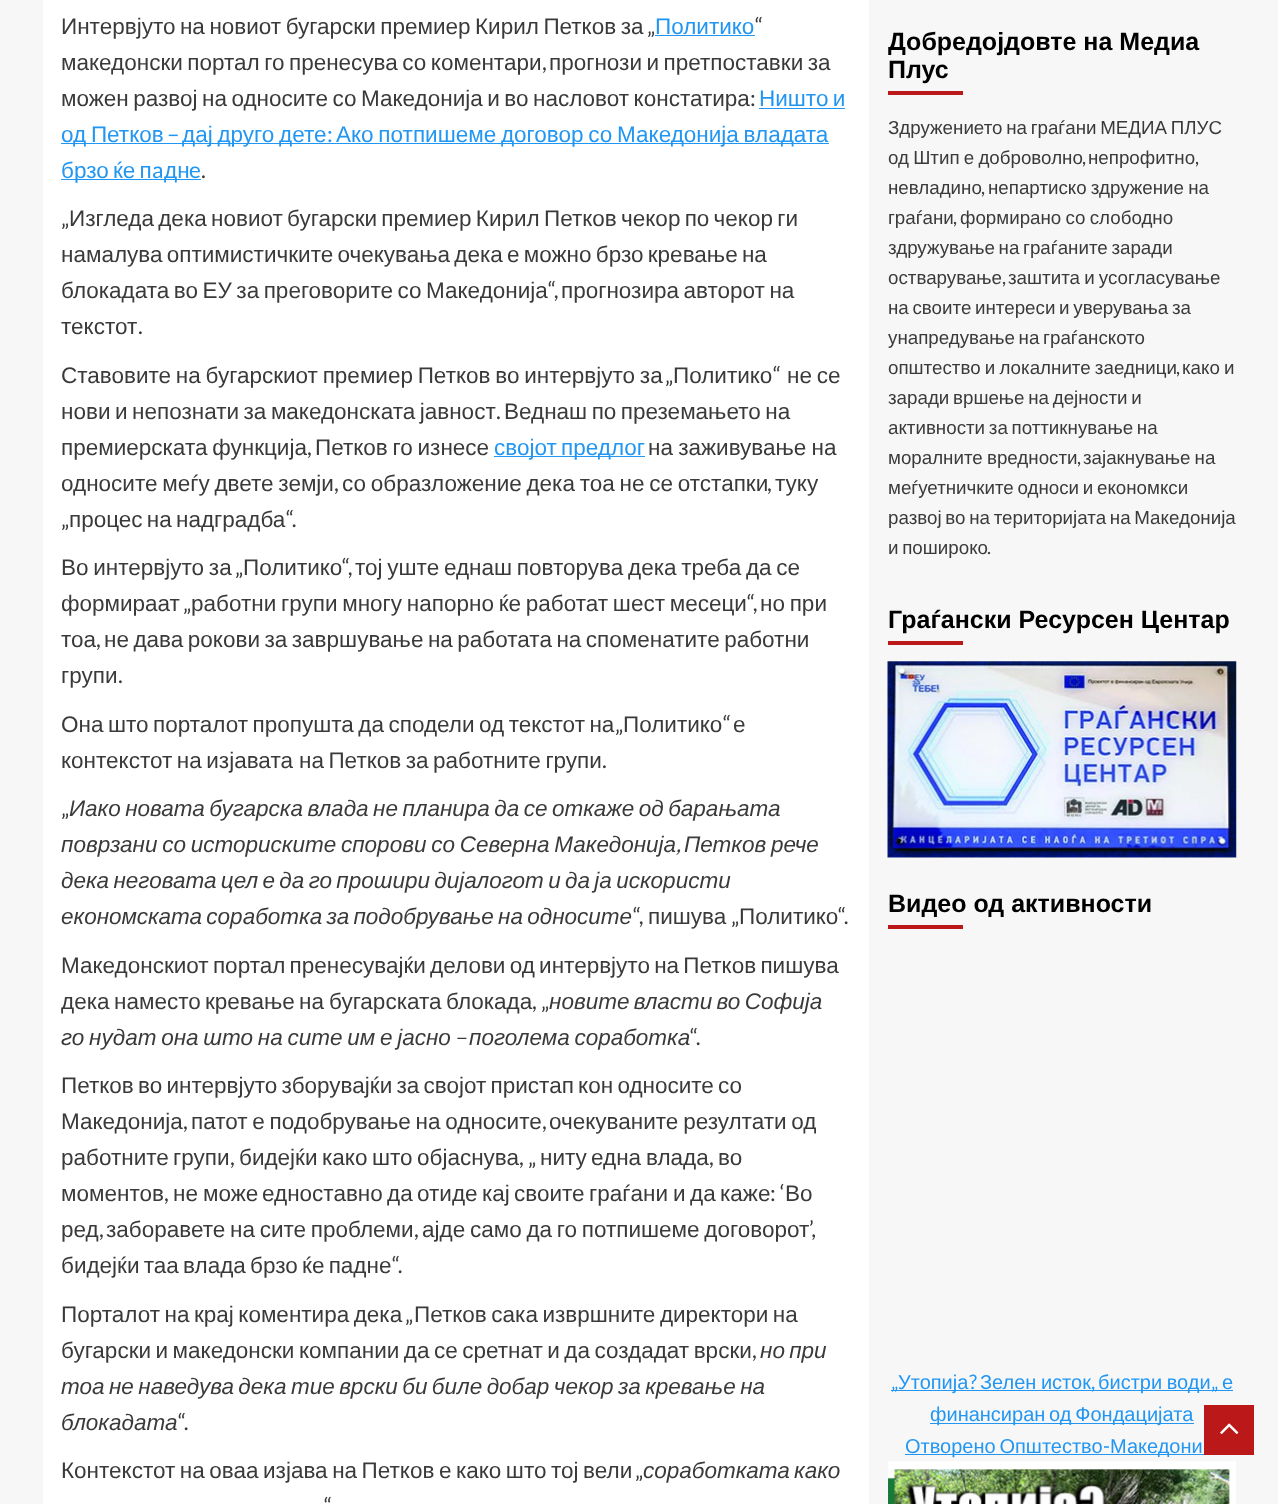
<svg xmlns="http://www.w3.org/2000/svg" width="1278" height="1504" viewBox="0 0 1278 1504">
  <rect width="100%" height="100%" fill="#f7f7f7"/>
  <rect x="43" y="0" width="826" height="1504" fill="#ffffff"/>
  <text x="61" y="34" word-spacing="-1.75" font-family="Liberation Sans" font-size="22.5" fill="#3a3a3a">Интервјуто на новиот бугарски премиер Кирил Петков за</text>
  <text x="647" y="34" font-family="Lato" font-size="22.5" fill="#3a3a3a">„</text>
  <text x="655" y="34" font-family="Liberation Sans" font-size="22.5" fill="#2196f3">Политико</text>
  <rect x="655" y="35" width="100" height="1" fill="#2196f3"/>
  <text x="755" y="34" font-family="Lato" font-size="22.5" fill="#3a3a3a">“</text>
  <text x="61" y="70" word-spacing="-1.75" font-family="Liberation Sans" font-size="22.5" fill="#3a3a3a">македонски портал го пренесува со коментари</text>
  <text x="542" y="70" font-family="Lato" font-size="22.5" fill="#3a3a3a">,</text>
  <text x="549" y="70" word-spacing="-1.75" font-family="Liberation Sans" font-size="22.5" fill="#3a3a3a">прогнози и претпоставки за</text>
  <text x="61" y="106" word-spacing="-1.75" font-family="Liberation Sans" font-size="22.5" fill="#3a3a3a">можен развој на односите со Македонија и во насловот констатира</text>
  <text x="750" y="106" font-family="Lato" font-size="22.5" fill="#3a3a3a">:</text>
  <text x="759" y="106" word-spacing="-2" font-family="Liberation Sans" font-size="22.5" fill="#2196f3">Ништо и</text>
  <rect x="759" y="108" width="86" height="1" fill="#2196f3"/>
  <rect x="61" y="143" width="768" height="1" fill="#2196f3"/>
  <text x="61" y="142" word-spacing="-1.5" font-family="Liberation Sans" font-size="22.5" fill="#2196f3">од Петков</text>
  <text x="167" y="142" font-family="Lato" font-size="22.5" fill="#2196f3">–</text>
  <text x="182" y="142" word-spacing="-1.5" font-family="Liberation Sans" font-size="22.5" fill="#2196f3">дај друго дете</text>
  <text x="327" y="142" font-family="Lato" font-size="22.5" fill="#2196f3">:</text>
  <text x="336" y="142" word-spacing="-1.5" font-family="Liberation Sans" font-size="22.5" fill="#2196f3">Ако потпишеме договор со Македонија владата</text>
  <rect x="61" y="179" width="140" height="1" fill="#2196f3"/>
  <text x="61" y="178" word-spacing="-2" font-family="Liberation Sans" font-size="22.5" fill="#2196f3">брзо ќе п</text>
  <text x="152" y="178" font-family="Lato" font-size="22.5" fill="#2196f3">a</text>
  <text x="164" y="178" font-family="Liberation Sans" font-size="22.5" fill="#2196f3">дн</text>
  <text x="189" y="178" font-family="Lato" font-size="22.5" fill="#2196f3">e</text>
  <text x="201" y="178" font-family="Lato" font-size="22.5" fill="#3a3a3a">.</text>
  <text x="61" y="226" font-family="Lato" font-size="22.5" fill="#3a3a3a">„</text>
  <text x="69" y="226" word-spacing="-2" font-family="Liberation Sans" font-size="22.5" fill="#3a3a3a">Изгледа дека новиот бугарски премиер Кирил Петков чекор по чекор ги</text>
  <text x="61" y="262" word-spacing="-2" font-family="Liberation Sans" font-size="22.5" fill="#3a3a3a">намалува оптимистичките очекувања дека е можно брзо кревање на</text>
  <text x="61" y="298" word-spacing="-1.75" font-family="Liberation Sans" font-size="22.5" fill="#3a3a3a">блокадата во ЕУ за преговорите со Македонија</text>
  <text x="548" y="298" font-family="Lato" font-size="22.5" fill="#3a3a3a">“,</text>
  <text x="561" y="298" word-spacing="-1.75" font-family="Liberation Sans" font-size="22.5" fill="#3a3a3a">прогнозира авторот на</text>
  <text x="61" y="334" font-family="Liberation Sans" font-size="22.5" fill="#3a3a3a">текстот</text>
  <text x="138" y="334" font-family="Lato" font-size="22.5" fill="#3a3a3a">.</text>
  <text x="61" y="383" word-spacing="-1.5" font-family="Liberation Sans" font-size="22.5" fill="#3a3a3a">Ставовите на бугарскиот премиер Петков во интервјуто за</text>
  <text x="665" y="383" font-family="Lato" font-size="22.5" fill="#3a3a3a">„</text>
  <text x="673" y="383" font-family="Liberation Sans" font-size="22.5" fill="#3a3a3a">Политико</text>
  <text x="773" y="383" font-family="Lato" font-size="22.5" fill="#3a3a3a">“</text>
  <text x="787" y="383" word-spacing="-1.5" font-family="Liberation Sans" font-size="22.5" fill="#3a3a3a">не се</text>
  <text x="61" y="419" word-spacing="-1.75" font-family="Liberation Sans" font-size="22.5" fill="#3a3a3a">нови и непознати за македонската јавност</text>
  <text x="496" y="419" font-family="Lato" font-size="22.5" fill="#3a3a3a">.</text>
  <text x="504" y="419" word-spacing="-1.75" font-family="Liberation Sans" font-size="22.5" fill="#3a3a3a">Веднаш по преземањето на</text>
  <text x="61" y="455" word-spacing="-1.5" font-family="Liberation Sans" font-size="22.5" fill="#3a3a3a">премиерската функција</text>
  <text x="307" y="455" font-family="Lato" font-size="22.5" fill="#3a3a3a">,</text>
  <text x="315" y="455" word-spacing="-1.5" font-family="Liberation Sans" font-size="22.5" fill="#3a3a3a">Петков го изнесе</text>
  <rect x="494" y="456" width="151" height="1" fill="#2196f3"/>
  <text x="494" y="455" word-spacing="-2" font-family="Liberation Sans" font-size="22.5" fill="#2196f3">својот предлог</text>
  <text x="648" y="455" word-spacing="-1" font-family="Liberation Sans" font-size="22.5" fill="#3a3a3a">на заживување на</text>
  <text x="61" y="491" word-spacing="-1.5" font-family="Liberation Sans" font-size="22.5" fill="#3a3a3a">односите меѓу двете земји</text>
  <text x="334" y="491" font-family="Lato" font-size="22.5" fill="#3a3a3a">,</text>
  <text x="342" y="491" word-spacing="-1.5" font-family="Liberation Sans" font-size="22.5" fill="#3a3a3a">со образложение дека тоа не се отстапки</text>
  <text x="767" y="491" font-family="Lato" font-size="22.5" fill="#3a3a3a">,</text>
  <text x="775" y="491" font-family="Liberation Sans" font-size="22.5" fill="#3a3a3a">туку</text>
  <text x="61" y="527" font-family="Lato" font-size="22.5" fill="#3a3a3a">„</text>
  <text x="69" y="527" word-spacing="-2" font-family="Liberation Sans" font-size="22.5" fill="#3a3a3a">процес на надградба</text>
  <text x="286" y="527" font-family="Lato" font-size="22.5" fill="#3a3a3a">“.</text>
  <text x="61" y="575" word-spacing="-1.5" font-family="Liberation Sans" font-size="22.5" fill="#3a3a3a">Во интервјуто за</text>
  <text x="235" y="575" font-family="Lato" font-size="22.5" fill="#3a3a3a">„</text>
  <text x="243" y="575" font-family="Liberation Sans" font-size="22.5" fill="#3a3a3a">Политико</text>
  <text x="342" y="575" font-family="Lato" font-size="22.5" fill="#3a3a3a">“,</text>
  <text x="355" y="575" word-spacing="-1.5" font-family="Liberation Sans" font-size="22.5" fill="#3a3a3a">тој уште еднаш повторува дека треба да се</text>
  <text x="61" y="611" font-family="Liberation Sans" font-size="22.5" fill="#3a3a3a">формираат</text>
  <text x="183" y="611" font-family="Lato" font-size="22.5" fill="#3a3a3a">„</text>
  <text x="191" y="611" word-spacing="-1.5" font-family="Liberation Sans" font-size="22.5" fill="#3a3a3a">работни групи многу напорно ќе работат шест месеци</text>
  <text x="747" y="611" font-family="Lato" font-size="22.5" fill="#3a3a3a">“,</text>
  <text x="760" y="611" word-spacing="-1.5" font-family="Liberation Sans" font-size="22.5" fill="#3a3a3a">но при</text>
  <text x="61" y="647" font-family="Liberation Sans" font-size="22.5" fill="#3a3a3a">тоа</text>
  <text x="96" y="647" font-family="Lato" font-size="22.5" fill="#3a3a3a">,</text>
  <text x="104" y="647" word-spacing="-1.75" font-family="Liberation Sans" font-size="22.5" fill="#3a3a3a">не дава рокови за завршување на работата на споменатите работни</text>
  <text x="61" y="683" font-family="Liberation Sans" font-size="22.5" fill="#3a3a3a">групи</text>
  <text x="118" y="683" font-family="Lato" font-size="22.5" fill="#3a3a3a">.</text>
  <text x="61" y="732" word-spacing="-1.75" font-family="Liberation Sans" font-size="22.5" fill="#3a3a3a">Она што порталот пропушта да сподели од текстот на</text>
  <text x="615" y="732" font-family="Lato" font-size="22.5" fill="#3a3a3a">„</text>
  <text x="623" y="732" font-family="Liberation Sans" font-size="22.5" fill="#3a3a3a">Политико</text>
  <text x="723" y="732" font-family="Lato" font-size="22.5" fill="#3a3a3a">“</text>
  <text x="733" y="732" font-family="Liberation Sans" font-size="22.5" fill="#3a3a3a">е</text>
  <text x="61" y="768" word-spacing="-1.75" font-family="Liberation Sans" font-size="22.5" fill="#3a3a3a">контекстот на изјавата</text>
  <text x="299" y="768" word-spacing="-1.75" font-family="Liberation Sans" font-size="22.5" fill="#3a3a3a">на Петков за работните групи</text>
  <text x="602" y="768" font-family="Lato" font-size="22.5" fill="#3a3a3a">.</text>
  <text x="61" y="816" font-family="Lato" font-size="22.5" fill="#3a3a3a">„</text>
  <text x="69" y="816" word-spacing="-1.8" font-family="Liberation Sans" font-size="22.5" font-style="italic" fill="#3a3a3a">Иако новата бугарска влада не планира да се откаже од барањата</text>
  <text x="61" y="852" word-spacing="-1.5" font-family="Liberation Sans" font-size="22.5" font-style="italic" fill="#3a3a3a">поврзани со историските спорови со Северна Македонија</text>
  <text x="676" y="852" font-family="Lato" font-size="22.5" font-style="italic" fill="#3a3a3a">,</text>
  <text x="684" y="852" word-spacing="-1.5" font-family="Liberation Sans" font-size="22.5" font-style="italic" fill="#3a3a3a">Петков рече</text>
  <text x="61" y="888" word-spacing="-1.9" font-family="Liberation Sans" font-size="22.5" font-style="italic" fill="#3a3a3a">дека неговата цел е да го прошири дијалогот и да ја искористи</text>
  <text x="61" y="924" word-spacing="-2" font-family="Liberation Sans" font-size="22.5" font-style="italic" fill="#3a3a3a">економската соработка за подобрување на односите</text>
  <text x="633" y="924" font-family="Lato" font-size="22.5" fill="#3a3a3a">“,</text>
  <text x="648" y="924" font-family="Liberation Sans" font-size="22.5" fill="#3a3a3a">пишува</text>
  <text x="731" y="924" font-family="Lato" font-size="22.5" fill="#3a3a3a">„</text>
  <text x="739" y="924" font-family="Liberation Sans" font-size="22.5" fill="#3a3a3a">Политико</text>
  <text x="838" y="924" font-family="Lato" font-size="22.5" fill="#3a3a3a">“.</text>
  <text x="61" y="973" word-spacing="-2" font-family="Liberation Sans" font-size="22.5" fill="#3a3a3a">Македонскиот портал пренесувајќи делови од интервјуто на Петков пишува</text>
  <text x="61" y="1009" font-family="Liberation Sans" font-size="22.5" fill="#3a3a3a">дека</text>
  <text x="114" y="1009" font-family="Liberation Sans" font-size="22.5" fill="#3a3a3a">наместо</text>
  <text x="205" y="1009" font-family="Liberation Sans" font-size="22.5" fill="#3a3a3a">кревање</text>
  <text x="299" y="1009" font-family="Liberation Sans" font-size="22.5" fill="#3a3a3a">на</text>
  <text x="329" y="1009" font-family="Liberation Sans" font-size="22.5" fill="#3a3a3a">бугарската</text>
  <text x="446" y="1009" font-family="Liberation Sans" font-size="22.5" fill="#3a3a3a">блокада</text>
  <text x="532" y="1009" font-family="Lato" font-size="22.5" fill="#3a3a3a">, „</text>
  <text x="549" y="1009" word-spacing="-2" font-family="Liberation Sans" font-size="22.5" font-style="italic" fill="#3a3a3a">новите власти во Софија</text>
  <text x="61" y="1045" word-spacing="-1.5" font-family="Liberation Sans" font-size="22.5" font-style="italic" fill="#3a3a3a">го нудат она што на сите им е јасно</text>
  <text x="454" y="1045" font-family="Lato" font-size="22.5" font-style="italic" fill="#3a3a3a">–</text>
  <text x="469" y="1045" word-spacing="-1.5" font-family="Liberation Sans" font-size="22.5" font-style="italic" fill="#3a3a3a">поголема соработка</text>
  <text x="690" y="1045" font-family="Lato" font-size="22.5" fill="#3a3a3a">“.</text>
  <text x="61" y="1093" word-spacing="-2" font-family="Liberation Sans" font-size="22.5" fill="#3a3a3a">Петков во интервјуто зборувајќи за својот пристап кон односите со</text>
  <text x="61" y="1129" font-family="Liberation Sans" font-size="22.5" fill="#3a3a3a">Македонија</text>
  <text x="183" y="1129" font-family="Lato" font-size="22.5" fill="#3a3a3a">,</text>
  <text x="191" y="1129" word-spacing="-1.5" font-family="Liberation Sans" font-size="22.5" fill="#3a3a3a">патот е подобрување на односите</text>
  <text x="542" y="1129" font-family="Lato" font-size="22.5" fill="#3a3a3a">,</text>
  <text x="549" y="1129" word-spacing="-1.5" font-family="Liberation Sans" font-size="22.5" fill="#3a3a3a">очекуваните резултати од</text>
  <text x="61" y="1165" font-family="Liberation Sans" font-size="22.5" fill="#3a3a3a">работните</text>
  <text x="173" y="1165" font-family="Liberation Sans" font-size="22.5" fill="#3a3a3a">групи</text>
  <text x="230" y="1165" font-family="Lato" font-size="22.5" fill="#3a3a3a">,</text>
  <text x="239" y="1165" font-family="Liberation Sans" font-size="22.5" fill="#3a3a3a">бидејќи</text>
  <text x="322" y="1165" font-family="Liberation Sans" font-size="22.5" fill="#3a3a3a">како</text>
  <text x="372" y="1165" font-family="Liberation Sans" font-size="22.5" fill="#3a3a3a">што</text>
  <text x="417" y="1165" font-family="Liberation Sans" font-size="22.5" fill="#3a3a3a">објаснува</text>
  <text x="519" y="1165" font-family="Lato" font-size="22.5" fill="#3a3a3a">, „</text>
  <text x="540" y="1165" font-family="Liberation Sans" font-size="22.5" fill="#3a3a3a">ниту</text>
  <text x="591" y="1165" font-family="Liberation Sans" font-size="22.5" fill="#3a3a3a">една</text>
  <text x="646" y="1165" font-family="Liberation Sans" font-size="22.5" fill="#3a3a3a">влада</text>
  <text x="709" y="1165" font-family="Lato" font-size="22.5" fill="#3a3a3a">,</text>
  <text x="718" y="1165" font-family="Liberation Sans" font-size="22.5" fill="#3a3a3a">во</text>
  <text x="61" y="1201" font-family="Liberation Sans" font-size="22.5" fill="#3a3a3a">моментов</text>
  <text x="164" y="1201" font-family="Lato" font-size="22.5" fill="#3a3a3a">,</text>
  <text x="173" y="1201" font-family="Liberation Sans" font-size="22.5" fill="#3a3a3a">не</text>
  <text x="203" y="1201" font-family="Liberation Sans" font-size="22.5" fill="#3a3a3a">може</text>
  <text x="262" y="1201" font-family="Liberation Sans" font-size="22.5" fill="#3a3a3a">едноставно</text>
  <text x="387" y="1201" font-family="Liberation Sans" font-size="22.5" fill="#3a3a3a">да</text>
  <text x="417" y="1201" font-family="Liberation Sans" font-size="22.5" fill="#3a3a3a">отиде</text>
  <text x="482" y="1201" font-family="Liberation Sans" font-size="22.5" fill="#3a3a3a">кај</text>
  <text x="514" y="1201" font-family="Liberation Sans" font-size="22.5" fill="#3a3a3a">своите</text>
  <text x="589" y="1201" font-family="Liberation Sans" font-size="22.5" fill="#3a3a3a">граѓани</text>
  <text x="673" y="1201" font-family="Liberation Sans" font-size="22.5" fill="#3a3a3a">и</text>
  <text x="690" y="1201" font-family="Liberation Sans" font-size="22.5" fill="#3a3a3a">да</text>
  <text x="720" y="1201" font-family="Liberation Sans" font-size="22.5" fill="#3a3a3a">каже</text>
  <text x="770" y="1201" font-family="Lato" font-size="22.5" fill="#3a3a3a">: ‘</text>
  <text x="785" y="1201" font-family="Liberation Sans" font-size="22.5" fill="#3a3a3a">Во</text>
  <text x="61" y="1237" font-family="Liberation Sans" font-size="22.5" fill="#3a3a3a">ред</text>
  <text x="99" y="1237" font-family="Lato" font-size="22.5" fill="#3a3a3a">,</text>
  <text x="106" y="1237" word-spacing="-1.5" font-family="Liberation Sans" font-size="22.5" fill="#3a3a3a">заборавете на сите проблеми</text>
  <text x="414" y="1237" font-family="Lato" font-size="22.5" fill="#3a3a3a">,</text>
  <text x="422" y="1237" word-spacing="-1.5" font-family="Liberation Sans" font-size="22.5" fill="#3a3a3a">ајде само да го потпишеме договорот</text>
  <text x="809" y="1237" font-family="Lato" font-size="22.5" fill="#3a3a3a">’,</text>
  <text x="61" y="1273" word-spacing="-2" font-family="Liberation Sans" font-size="22.5" fill="#3a3a3a">бидејќи таа влада брзо ќе падне</text>
  <text x="392" y="1273" font-family="Lato" font-size="22.5" fill="#3a3a3a">“.</text>
  <text x="61" y="1322" word-spacing="-1.75" font-family="Liberation Sans" font-size="22.5" fill="#3a3a3a">Порталот на крај коментира дека</text>
  <text x="405" y="1322" font-family="Lato" font-size="22.5" fill="#3a3a3a">„</text>
  <text x="414" y="1322" word-spacing="-1.75" font-family="Liberation Sans" font-size="22.5" fill="#3a3a3a">Петков сака извршните директори на</text>
  <text x="61" y="1358" word-spacing="-1.75" font-family="Liberation Sans" font-size="22.5" fill="#3a3a3a">бугарски и македонски компании да се сретнат и да создадат врски</text>
  <text x="752" y="1358" font-family="Lato" font-size="22.5" fill="#3a3a3a">,</text>
  <text x="760" y="1358" word-spacing="-2" font-family="Liberation Sans" font-size="22.5" font-style="italic" fill="#3a3a3a">но при</text>
  <text x="61" y="1394" word-spacing="-1.8" font-family="Liberation Sans" font-size="22.5" font-style="italic" fill="#3a3a3a">тоа не наведува дека тие врски би биле добар чекор за кревање на</text>
  <text x="61" y="1430" font-family="Liberation Sans" font-size="22.5" font-style="italic" fill="#3a3a3a">блокадата</text>
  <text x="178" y="1430" font-family="Lato" font-size="22.5" fill="#3a3a3a">“.</text>
  <text x="61" y="1478" word-spacing="-1.75" font-family="Liberation Sans" font-size="22.5" fill="#3a3a3a">Контекстот на оваа изјава на Петков е како што тој вели</text>
  <text x="635" y="1478" font-family="Lato" font-size="22.5" fill="#3a3a3a">„</text>
  <text x="643" y="1478" word-spacing="-2" font-family="Liberation Sans" font-size="22.5" font-style="italic" fill="#3a3a3a">соработката како</text>
  <text x="324" y="1514" font-family="Lato" font-size="22.5" fill="#3a3a3a">“</text>
  <text x="888" y="50" font-family="Liberation Sans" font-size="25" font-weight="bold" fill="#000000">Добредојдовте на Медиа</text>
  <text x="888" y="78" font-family="Liberation Sans" font-size="25" font-weight="bold" fill="#000000">Плус</text>
  <rect x="888" y="91" width="75" height="4" fill="#bb1919"/>
  <text x="888" y="134" word-spacing="-1.5" font-family="Liberation Sans" font-size="18.75" fill="#3a3a3a">Здружението на граѓани МЕДИА ПЛУС</text>
  <text x="888" y="164" word-spacing="-1" font-family="Liberation Sans" font-size="18.75" fill="#3a3a3a">од Штип е доброволно</text>
  <text x="1082" y="164" font-family="Lato" font-size="18.75" fill="#3a3a3a">,</text>
  <text x="1088" y="164" font-family="Liberation Sans" font-size="18.75" fill="#3a3a3a">непрофитно</text>
  <text x="1195" y="164" font-family="Lato" font-size="18.75" fill="#3a3a3a">,</text>
  <text x="888" y="194" font-family="Liberation Sans" font-size="18.75" fill="#3a3a3a">невладино</text>
  <text x="981" y="194" font-family="Lato" font-size="18.75" fill="#3a3a3a">,</text>
  <text x="988" y="194" word-spacing="-1" font-family="Liberation Sans" font-size="18.75" fill="#3a3a3a">непартиско здружение на</text>
  <text x="888" y="224" font-family="Liberation Sans" font-size="18.75" fill="#3a3a3a">граѓани</text>
  <text x="953" y="224" font-family="Lato" font-size="18.75" fill="#3a3a3a">,</text>
  <text x="960" y="224" word-spacing="-1" font-family="Liberation Sans" font-size="18.75" fill="#3a3a3a">формирано со слободно</text>
  <text x="888" y="254" word-spacing="-1.5" font-family="Liberation Sans" font-size="18.75" fill="#3a3a3a">здружување на граѓаните заради</text>
  <text x="888" y="284" font-family="Liberation Sans" font-size="18.75" fill="#3a3a3a">остварување</text>
  <text x="1002" y="284" font-family="Lato" font-size="18.75" fill="#3a3a3a">,</text>
  <text x="1008" y="284" word-spacing="-1" font-family="Liberation Sans" font-size="18.75" fill="#3a3a3a">заштита и усогласување</text>
  <text x="888" y="314" word-spacing="-1.5" font-family="Liberation Sans" font-size="18.75" fill="#3a3a3a">на своите интереси и уверувања за</text>
  <text x="888" y="344" word-spacing="-1.5" font-family="Liberation Sans" font-size="18.75" fill="#3a3a3a">унапредување на граѓанското</text>
  <text x="888" y="374" word-spacing="-1" font-family="Liberation Sans" font-size="18.75" fill="#3a3a3a">општество и локалните заедници</text>
  <text x="1176" y="374" font-family="Lato" font-size="18.75" fill="#3a3a3a">,</text>
  <text x="1182" y="374" word-spacing="-1" font-family="Liberation Sans" font-size="18.75" fill="#3a3a3a">како и</text>
  <text x="888" y="404" word-spacing="-1.5" font-family="Liberation Sans" font-size="18.75" fill="#3a3a3a">заради вршење на дејности и</text>
  <text x="888" y="434" word-spacing="-1.5" font-family="Liberation Sans" font-size="18.75" fill="#3a3a3a">активности за поттикнување на</text>
  <text x="888" y="464" word-spacing="-1" font-family="Liberation Sans" font-size="18.75" fill="#3a3a3a">моралните вредности</text>
  <text x="1077" y="464" font-family="Lato" font-size="18.75" fill="#3a3a3a">,</text>
  <text x="1083" y="464" word-spacing="-1" font-family="Liberation Sans" font-size="18.75" fill="#3a3a3a">зајакнување на</text>
  <text x="888" y="494" word-spacing="-1.5" font-family="Liberation Sans" font-size="18.75" fill="#3a3a3a">меѓуетничките односи и економкси</text>
  <text x="888" y="524" word-spacing="-1.5" font-family="Liberation Sans" font-size="18.75" fill="#3a3a3a">развој во на територијата на Македонија</text>
  <text x="888" y="554" word-spacing="-1.5" font-family="Liberation Sans" font-size="18.75" fill="#3a3a3a">и пошироко</text>
  <text x="987" y="554" font-family="Lato" font-size="18.75" fill="#3a3a3a">.</text>
  <text x="888" y="628" font-family="Liberation Sans" font-size="25" font-weight="bold" fill="#000000">Граѓански Ресурсен Центар</text>
  <rect x="888" y="641" width="75" height="4" fill="#bb1919"/>
  <image x="887" y="661" width="350" height="197" href="img1.png"/>
  <text x="888" y="912" font-family="Liberation Sans" font-size="25" font-weight="bold" fill="#000000">Видеo од активности</text>
  <rect x="888" y="925" width="75" height="4" fill="#bb1919"/>
  <rect x="891" y="1390" width="342" height="1" fill="#2196f3"/>
  <text x="891" y="1389" font-family="Lato" font-size="20" fill="#2196f3">„</text>
  <text x="898" y="1389" font-family="Liberation Sans" font-size="20" fill="#2196f3">Утопија</text>
  <text x="969" y="1389" font-family="Lato" font-size="20" fill="#2196f3">?</text>
  <text x="980" y="1389" word-spacing="-1" font-family="Liberation Sans" font-size="20" fill="#2196f3">Зелен исток</text>
  <text x="1091" y="1389" font-family="Lato" font-size="20" fill="#2196f3">,</text>
  <text x="1098" y="1389" word-spacing="-1" font-family="Liberation Sans" font-size="20" fill="#2196f3">бистри води</text>
  <text x="1211" y="1389" font-family="Lato" font-size="20" fill="#2196f3">„</text>
  <text x="1222" y="1389" font-family="Liberation Sans" font-size="20" fill="#2196f3">е</text>
  <rect x="930" y="1423" width="264" height="1" fill="#2196f3"/>
  <text x="930" y="1421" word-spacing="-1.75" font-family="Liberation Sans" font-size="20" fill="#2196f3">финансиран од Фондацијата</text>
  <rect x="905" y="1454" width="299" height="1" fill="#2196f3"/>
  <text x="905" y="1453" word-spacing="-1.75" font-family="Liberation Sans" font-size="20" fill="#2196f3">Отворено Општество</text>
  <text x="1103" y="1453" font-family="Lato" font-size="20" fill="#2196f3">-</text>
  <text x="1110" y="1453" font-family="Liberation Sans" font-size="20" fill="#2196f3">Македони</text>
  <image x="888" y="1461" width="348" height="43" href="img2.png"/>
  <rect x="1204" y="1405" width="50" height="50" fill="#bb1919"/>
  <image x="1220" y="1423" width="19" height="11" href="img3.png"/>
</svg>
